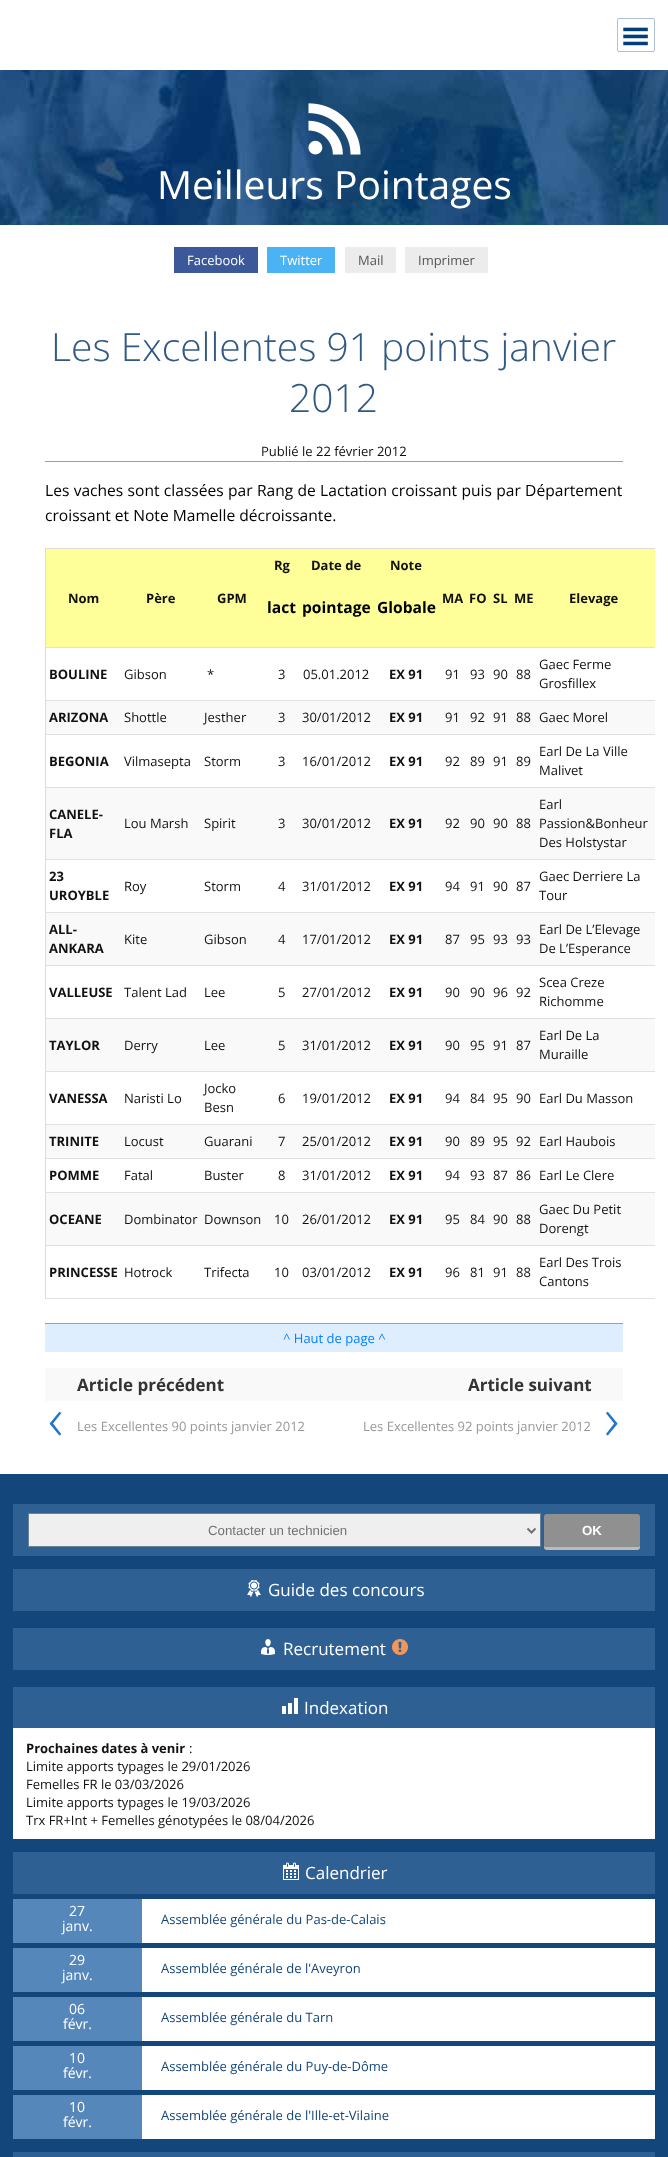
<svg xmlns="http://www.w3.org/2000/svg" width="668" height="2157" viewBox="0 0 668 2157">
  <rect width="100%" height="100%" fill="#ffffff"/>
  <image x="0" y="70" width="668" height="155" href="img1.png"/>
  <rect x="617.5" y="18.5" width="37" height="33" rx="1.5" fill="none" stroke="#aec1d6"/>
  <image x="623" y="27" width="25" height="19" href="img2.png"/>
  <image x="308" y="103" width="53" height="52" href="img3.png"/>
  <text x="157" y="199" font-family="Open Sans" font-size="39" fill="#ffffff">Meilleurs Pointages</text>
  <rect x="174" y="247" width="84" height="26" fill="#3b5998"/>
  <text x="187" y="265" font-family="Open Sans" font-size="13" fill="#ffffff">Facebook</text>
  <rect x="267" y="247" width="68" height="26" fill="#4ab3f4"/>
  <text x="280" y="265" font-family="Open Sans" font-size="13" fill="#ffffff">Twitter</text>
  <rect x="345" y="247" width="51" height="26" fill="#ececec"/>
  <text x="358" y="265" font-family="Open Sans" font-size="13" fill="#555555">Mail</text>
  <rect x="405" y="247" width="83" height="26" fill="#ececec"/>
  <text x="418" y="265" font-family="Open Sans" font-size="13" fill="#555555">Imprimer</text>
  <text x="51" y="361" font-family="Open Sans" font-size="39" font-weight="300" fill="#305a83">Les Excellentes 91 points janvier</text>
  <text x="289" y="412" font-family="Open Sans" font-size="39" font-weight="300" fill="#305a83">2012</text>
  <rect x="45" y="461" width="578" height="1" fill="#74adc8"/>
  <text x="261" y="456" font-family="Open Sans" font-size="13" fill="#111111">Publié le 22 février 2012</text>
  <text x="45" y="496" word-spacing="0.25" font-family="Open Sans" font-size="15.6" fill="#000000">Les vaches sont classées par Rang de Lactation croissant puis par Département</text>
  <text x="45" y="521" font-family="Open Sans" font-size="15.6" fill="#000000">croissant et Note Mamelle décroissante.</text>
  <rect x="45" y="548" width="610" height="1" fill="#dcdcdc"/>
  <rect x="45" y="548" width="1" height="751" fill="#dcdcdc"/>
  <rect x="46" y="549" width="609" height="98" fill="#ffff99"/>
  <text x="68" y="603" font-family="Open Sans" font-size="13" font-weight="bold" fill="#111111">Nom</text>
  <text x="146" y="603" font-family="Open Sans" font-size="13" font-weight="bold" fill="#111111">Père</text>
  <text x="217" y="603" font-family="Open Sans" font-size="13" font-weight="bold" fill="#111111">GPM</text>
  <text x="274" y="570" font-family="Open Sans" font-size="13" font-weight="bold" fill="#111111">Rg</text>
  <text x="267" y="613" font-family="Open Sans" font-size="15.6" font-weight="bold" fill="#000000">lact</text>
  <text x="311" y="570" font-family="Open Sans" font-size="13" font-weight="bold" fill="#111111">Date de</text>
  <text x="302" y="613" font-family="Open Sans" font-size="15.6" font-weight="bold" fill="#000000">pointage</text>
  <text x="390" y="570" font-family="Open Sans" font-size="13" font-weight="bold" fill="#111111">Note</text>
  <text x="377" y="613" font-family="Open Sans" font-size="15.6" font-weight="bold" fill="#000000">Globale</text>
  <text x="442" y="603" font-family="Open Sans" font-size="13" font-weight="bold" fill="#111111">MA</text>
  <text x="469" y="603" font-family="Open Sans" font-size="13" font-weight="bold" fill="#111111">FO</text>
  <text x="493" y="603" font-family="Open Sans" font-size="13" font-weight="bold" fill="#111111">SL</text>
  <text x="514" y="603" font-family="Open Sans" font-size="13" font-weight="bold" fill="#111111">ME</text>
  <text x="569" y="603" font-family="Open Sans" font-size="13" font-weight="bold" fill="#111111">Elevage</text>
  <rect x="45" y="647" width="610" height="1" fill="#e0e0e0"/>
  <text x="49" y="679" font-family="Open Sans" font-size="13" font-weight="bold" fill="#111111">BOULINE</text>
  <text x="124" y="679" font-family="Open Sans" font-size="13" fill="#111111">Gibson</text>
  <text x="207" y="679" font-family="Open Sans" font-size="13" fill="#111111">*</text>
  <text x="278" y="679" font-family="Open Sans" font-size="13" fill="#111111">3</text>
  <text x="303" y="679" font-family="Open Sans" font-size="13" fill="#111111">05.01.2012</text>
  <text x="389" y="679" font-family="Open Sans" font-size="13" font-weight="bold" fill="#111111">EX 91</text>
  <text x="445" y="679" font-family="Open Sans" font-size="13" fill="#111111">91</text>
  <text x="470" y="679" font-family="Open Sans" font-size="13" fill="#111111">93</text>
  <text x="493" y="679" font-family="Open Sans" font-size="13" fill="#111111">90</text>
  <text x="516" y="679" font-family="Open Sans" font-size="13" fill="#111111">88</text>
  <text x="539" y="669" font-family="Open Sans" font-size="13" fill="#111111">Gaec Ferme</text>
  <text x="539" y="688" font-family="Open Sans" font-size="13" fill="#111111">Grosfillex</text>
  <rect x="45" y="700" width="610" height="1" fill="#e0e0e0"/>
  <rect x="46" y="701" width="609" height="33" fill="#f9f9f9"/>
  <text x="49" y="722" font-family="Open Sans" font-size="13" font-weight="bold" fill="#111111">ARIZONA</text>
  <text x="124" y="722" font-family="Open Sans" font-size="13" fill="#111111">Shottle</text>
  <text x="204" y="722" font-family="Open Sans" font-size="13" fill="#111111">Jesther</text>
  <text x="278" y="722" font-family="Open Sans" font-size="13" fill="#111111">3</text>
  <text x="302" y="722" font-family="Open Sans" font-size="13" fill="#111111">30/01/2012</text>
  <text x="389" y="722" font-family="Open Sans" font-size="13" font-weight="bold" fill="#111111">EX 91</text>
  <text x="445" y="722" font-family="Open Sans" font-size="13" fill="#111111">91</text>
  <text x="470" y="722" font-family="Open Sans" font-size="13" fill="#111111">92</text>
  <text x="493" y="722" font-family="Open Sans" font-size="13" fill="#111111">91</text>
  <text x="516" y="722" font-family="Open Sans" font-size="13" fill="#111111">88</text>
  <text x="539" y="722" font-family="Open Sans" font-size="13" fill="#111111">Gaec Morel</text>
  <rect x="45" y="734" width="610" height="1" fill="#e0e0e0"/>
  <text x="49" y="766" font-family="Open Sans" font-size="13" font-weight="bold" fill="#111111">BEGONIA</text>
  <text x="124" y="766" font-family="Open Sans" font-size="13" fill="#111111">Vilmasepta</text>
  <text x="204" y="766" font-family="Open Sans" font-size="13" fill="#111111">Storm</text>
  <text x="278" y="766" font-family="Open Sans" font-size="13" fill="#111111">3</text>
  <text x="302" y="766" font-family="Open Sans" font-size="13" fill="#111111">16/01/2012</text>
  <text x="389" y="766" font-family="Open Sans" font-size="13" font-weight="bold" fill="#111111">EX 91</text>
  <text x="445" y="766" font-family="Open Sans" font-size="13" fill="#111111">92</text>
  <text x="470" y="766" font-family="Open Sans" font-size="13" fill="#111111">89</text>
  <text x="493" y="766" font-family="Open Sans" font-size="13" fill="#111111">91</text>
  <text x="516" y="766" font-family="Open Sans" font-size="13" fill="#111111">89</text>
  <text x="539" y="756" font-family="Open Sans" font-size="13" fill="#111111">Earl De La Ville</text>
  <text x="539" y="775" font-family="Open Sans" font-size="13" fill="#111111">Malivet</text>
  <rect x="45" y="787" width="610" height="1" fill="#e0e0e0"/>
  <rect x="46" y="788" width="609" height="71" fill="#f9f9f9"/>
  <text x="49" y="819" font-family="Open Sans" font-size="13" font-weight="bold" fill="#111111">CANELE-</text>
  <text x="49" y="838" font-family="Open Sans" font-size="13" font-weight="bold" fill="#111111">FLA</text>
  <text x="124" y="828" font-family="Open Sans" font-size="13" fill="#111111">Lou Marsh</text>
  <text x="204" y="828" font-family="Open Sans" font-size="13" fill="#111111">Spirit</text>
  <text x="278" y="828" font-family="Open Sans" font-size="13" fill="#111111">3</text>
  <text x="302" y="828" font-family="Open Sans" font-size="13" fill="#111111">30/01/2012</text>
  <text x="389" y="828" font-family="Open Sans" font-size="13" font-weight="bold" fill="#111111">EX 91</text>
  <text x="445" y="828" font-family="Open Sans" font-size="13" fill="#111111">92</text>
  <text x="470" y="828" font-family="Open Sans" font-size="13" fill="#111111">90</text>
  <text x="493" y="828" font-family="Open Sans" font-size="13" fill="#111111">90</text>
  <text x="516" y="828" font-family="Open Sans" font-size="13" fill="#111111">88</text>
  <text x="539" y="809" font-family="Open Sans" font-size="13" fill="#111111">Earl</text>
  <text x="539" y="828" font-family="Open Sans" font-size="13" fill="#111111">Passion&amp;Bonheur</text>
  <text x="539" y="847" font-family="Open Sans" font-size="13" fill="#111111">Des Holstystar</text>
  <rect x="45" y="859" width="610" height="1" fill="#e0e0e0"/>
  <text x="49" y="881" font-family="Open Sans" font-size="13" font-weight="bold" fill="#111111">23</text>
  <text x="49" y="900" font-family="Open Sans" font-size="13" font-weight="bold" fill="#111111">UROYBLE</text>
  <text x="124" y="891" font-family="Open Sans" font-size="13" fill="#111111">Roy</text>
  <text x="204" y="891" font-family="Open Sans" font-size="13" fill="#111111">Storm</text>
  <text x="278" y="891" font-family="Open Sans" font-size="13" fill="#111111">4</text>
  <text x="302" y="891" font-family="Open Sans" font-size="13" fill="#111111">31/01/2012</text>
  <text x="389" y="891" font-family="Open Sans" font-size="13" font-weight="bold" fill="#111111">EX 91</text>
  <text x="445" y="891" font-family="Open Sans" font-size="13" fill="#111111">94</text>
  <text x="470" y="891" font-family="Open Sans" font-size="13" fill="#111111">91</text>
  <text x="493" y="891" font-family="Open Sans" font-size="13" fill="#111111">90</text>
  <text x="516" y="891" font-family="Open Sans" font-size="13" fill="#111111">87</text>
  <text x="539" y="881" font-family="Open Sans" font-size="13" fill="#111111">Gaec Derriere La</text>
  <text x="539" y="900" font-family="Open Sans" font-size="13" fill="#111111">Tour</text>
  <rect x="45" y="912" width="610" height="1" fill="#e0e0e0"/>
  <rect x="46" y="913" width="609" height="52" fill="#f9f9f9"/>
  <text x="49" y="934" font-family="Open Sans" font-size="13" font-weight="bold" fill="#111111">ALL-</text>
  <text x="49" y="953" font-family="Open Sans" font-size="13" font-weight="bold" fill="#111111">ANKARA</text>
  <text x="124" y="944" font-family="Open Sans" font-size="13" fill="#111111">Kite</text>
  <text x="204" y="944" font-family="Open Sans" font-size="13" fill="#111111">Gibson</text>
  <text x="278" y="944" font-family="Open Sans" font-size="13" fill="#111111">4</text>
  <text x="302" y="944" font-family="Open Sans" font-size="13" fill="#111111">17/01/2012</text>
  <text x="389" y="944" font-family="Open Sans" font-size="13" font-weight="bold" fill="#111111">EX 91</text>
  <text x="445" y="944" font-family="Open Sans" font-size="13" fill="#111111">87</text>
  <text x="470" y="944" font-family="Open Sans" font-size="13" fill="#111111">95</text>
  <text x="493" y="944" font-family="Open Sans" font-size="13" fill="#111111">93</text>
  <text x="516" y="944" font-family="Open Sans" font-size="13" fill="#111111">93</text>
  <text x="539" y="934" font-family="Open Sans" font-size="13" fill="#111111">Earl De L’Elevage</text>
  <text x="539" y="953" font-family="Open Sans" font-size="13" fill="#111111">De L’Esperance</text>
  <rect x="45" y="965" width="610" height="1" fill="#e0e0e0"/>
  <text x="49" y="997" font-family="Open Sans" font-size="13" font-weight="bold" fill="#111111">VALLEUSE</text>
  <text x="124" y="997" font-family="Open Sans" font-size="13" fill="#111111">Talent Lad</text>
  <text x="204" y="997" font-family="Open Sans" font-size="13" fill="#111111">Lee</text>
  <text x="278" y="997" font-family="Open Sans" font-size="13" fill="#111111">5</text>
  <text x="302" y="997" font-family="Open Sans" font-size="13" fill="#111111">27/01/2012</text>
  <text x="389" y="997" font-family="Open Sans" font-size="13" font-weight="bold" fill="#111111">EX 91</text>
  <text x="445" y="997" font-family="Open Sans" font-size="13" fill="#111111">90</text>
  <text x="470" y="997" font-family="Open Sans" font-size="13" fill="#111111">90</text>
  <text x="493" y="997" font-family="Open Sans" font-size="13" fill="#111111">96</text>
  <text x="516" y="997" font-family="Open Sans" font-size="13" fill="#111111">92</text>
  <text x="539" y="987" font-family="Open Sans" font-size="13" fill="#111111">Scea Creze</text>
  <text x="539" y="1006" font-family="Open Sans" font-size="13" fill="#111111">Richomme</text>
  <rect x="45" y="1018" width="610" height="1" fill="#e0e0e0"/>
  <rect x="46" y="1019" width="609" height="52" fill="#f9f9f9"/>
  <text x="49" y="1050" font-family="Open Sans" font-size="13" font-weight="bold" fill="#111111">TAYLOR</text>
  <text x="124" y="1050" font-family="Open Sans" font-size="13" fill="#111111">Derry</text>
  <text x="204" y="1050" font-family="Open Sans" font-size="13" fill="#111111">Lee</text>
  <text x="278" y="1050" font-family="Open Sans" font-size="13" fill="#111111">5</text>
  <text x="302" y="1050" font-family="Open Sans" font-size="13" fill="#111111">31/01/2012</text>
  <text x="389" y="1050" font-family="Open Sans" font-size="13" font-weight="bold" fill="#111111">EX 91</text>
  <text x="445" y="1050" font-family="Open Sans" font-size="13" fill="#111111">90</text>
  <text x="470" y="1050" font-family="Open Sans" font-size="13" fill="#111111">95</text>
  <text x="493" y="1050" font-family="Open Sans" font-size="13" fill="#111111">91</text>
  <text x="516" y="1050" font-family="Open Sans" font-size="13" fill="#111111">87</text>
  <text x="539" y="1040" font-family="Open Sans" font-size="13" fill="#111111">Earl De La</text>
  <text x="539" y="1059" font-family="Open Sans" font-size="13" fill="#111111">Muraille</text>
  <rect x="45" y="1071" width="610" height="1" fill="#e0e0e0"/>
  <text x="49" y="1103" font-family="Open Sans" font-size="13" font-weight="bold" fill="#111111">VANESSA</text>
  <text x="124" y="1103" font-family="Open Sans" font-size="13" fill="#111111">Naristi Lo</text>
  <text x="204" y="1093" font-family="Open Sans" font-size="13" fill="#111111">Jocko</text>
  <text x="204" y="1112" font-family="Open Sans" font-size="13" fill="#111111">Besn</text>
  <text x="278" y="1103" font-family="Open Sans" font-size="13" fill="#111111">6</text>
  <text x="302" y="1103" font-family="Open Sans" font-size="13" fill="#111111">19/01/2012</text>
  <text x="389" y="1103" font-family="Open Sans" font-size="13" font-weight="bold" fill="#111111">EX 91</text>
  <text x="445" y="1103" font-family="Open Sans" font-size="13" fill="#111111">94</text>
  <text x="470" y="1103" font-family="Open Sans" font-size="13" fill="#111111">84</text>
  <text x="493" y="1103" font-family="Open Sans" font-size="13" fill="#111111">95</text>
  <text x="516" y="1103" font-family="Open Sans" font-size="13" fill="#111111">90</text>
  <text x="539" y="1103" font-family="Open Sans" font-size="13" fill="#111111">Earl Du Masson</text>
  <rect x="45" y="1124" width="610" height="1" fill="#e0e0e0"/>
  <rect x="46" y="1125" width="609" height="33" fill="#f9f9f9"/>
  <text x="49" y="1146" font-family="Open Sans" font-size="13" font-weight="bold" fill="#111111">TRINITE</text>
  <text x="124" y="1146" font-family="Open Sans" font-size="13" fill="#111111">Locust</text>
  <text x="204" y="1146" font-family="Open Sans" font-size="13" fill="#111111">Guarani</text>
  <text x="278" y="1146" font-family="Open Sans" font-size="13" fill="#111111">7</text>
  <text x="302" y="1146" font-family="Open Sans" font-size="13" fill="#111111">25/01/2012</text>
  <text x="389" y="1146" font-family="Open Sans" font-size="13" font-weight="bold" fill="#111111">EX 91</text>
  <text x="445" y="1146" font-family="Open Sans" font-size="13" fill="#111111">90</text>
  <text x="470" y="1146" font-family="Open Sans" font-size="13" fill="#111111">89</text>
  <text x="493" y="1146" font-family="Open Sans" font-size="13" fill="#111111">95</text>
  <text x="516" y="1146" font-family="Open Sans" font-size="13" fill="#111111">92</text>
  <text x="539" y="1146" font-family="Open Sans" font-size="13" fill="#111111">Earl Haubois</text>
  <rect x="45" y="1158" width="610" height="1" fill="#e0e0e0"/>
  <text x="49" y="1180" font-family="Open Sans" font-size="13" font-weight="bold" fill="#111111">POMME</text>
  <text x="124" y="1180" font-family="Open Sans" font-size="13" fill="#111111">Fatal</text>
  <text x="204" y="1180" font-family="Open Sans" font-size="13" fill="#111111">Buster</text>
  <text x="278" y="1180" font-family="Open Sans" font-size="13" fill="#111111">8</text>
  <text x="302" y="1180" font-family="Open Sans" font-size="13" fill="#111111">31/01/2012</text>
  <text x="389" y="1180" font-family="Open Sans" font-size="13" font-weight="bold" fill="#111111">EX 91</text>
  <text x="445" y="1180" font-family="Open Sans" font-size="13" fill="#111111">94</text>
  <text x="470" y="1180" font-family="Open Sans" font-size="13" fill="#111111">93</text>
  <text x="493" y="1180" font-family="Open Sans" font-size="13" fill="#111111">87</text>
  <text x="516" y="1180" font-family="Open Sans" font-size="13" fill="#111111">86</text>
  <text x="539" y="1180" font-family="Open Sans" font-size="13" fill="#111111">Earl Le Clere</text>
  <rect x="45" y="1192" width="610" height="1" fill="#e0e0e0"/>
  <rect x="46" y="1193" width="609" height="52" fill="#f9f9f9"/>
  <text x="49" y="1224" font-family="Open Sans" font-size="13" font-weight="bold" fill="#111111">OCEANE</text>
  <text x="124" y="1224" font-family="Open Sans" font-size="13" fill="#111111">Dombinator</text>
  <text x="204" y="1224" font-family="Open Sans" font-size="13" fill="#111111">Downson</text>
  <text x="274" y="1224" font-family="Open Sans" font-size="13" fill="#111111">10</text>
  <text x="302" y="1224" font-family="Open Sans" font-size="13" fill="#111111">26/01/2012</text>
  <text x="389" y="1224" font-family="Open Sans" font-size="13" font-weight="bold" fill="#111111">EX 91</text>
  <text x="445" y="1224" font-family="Open Sans" font-size="13" fill="#111111">95</text>
  <text x="470" y="1224" font-family="Open Sans" font-size="13" fill="#111111">84</text>
  <text x="493" y="1224" font-family="Open Sans" font-size="13" fill="#111111">90</text>
  <text x="516" y="1224" font-family="Open Sans" font-size="13" fill="#111111">88</text>
  <text x="539" y="1214" font-family="Open Sans" font-size="13" fill="#111111">Gaec Du Petit</text>
  <text x="539" y="1233" font-family="Open Sans" font-size="13" fill="#111111">Dorengt</text>
  <rect x="45" y="1245" width="610" height="1" fill="#e0e0e0"/>
  <text x="49" y="1277" font-family="Open Sans" font-size="13" font-weight="bold" fill="#111111">PRINCESSE</text>
  <text x="124" y="1277" font-family="Open Sans" font-size="13" fill="#111111">Hotrock</text>
  <text x="204" y="1277" font-family="Open Sans" font-size="13" fill="#111111">Trifecta</text>
  <text x="274" y="1277" font-family="Open Sans" font-size="13" fill="#111111">10</text>
  <text x="302" y="1277" font-family="Open Sans" font-size="13" fill="#111111">03/01/2012</text>
  <text x="389" y="1277" font-family="Open Sans" font-size="13" font-weight="bold" fill="#111111">EX 91</text>
  <text x="445" y="1277" font-family="Open Sans" font-size="13" fill="#111111">96</text>
  <text x="470" y="1277" font-family="Open Sans" font-size="13" fill="#111111">81</text>
  <text x="493" y="1277" font-family="Open Sans" font-size="13" fill="#111111">91</text>
  <text x="516" y="1277" font-family="Open Sans" font-size="13" fill="#111111">88</text>
  <text x="539" y="1267" font-family="Open Sans" font-size="13" fill="#111111">Earl Des Trois</text>
  <text x="539" y="1286" font-family="Open Sans" font-size="13" fill="#111111">Cantons</text>
  <rect x="45" y="1298" width="610" height="1" fill="#e0e0e0"/>
  <rect x="45" y="1323" width="578" height="1" fill="#74adc8"/>
  <rect x="45" y="1324" width="578" height="28" fill="#deeeff"/>
  <text x="283" y="1343" font-family="Open Sans" font-size="13" fill="#0382ff">^ Haut de page ^</text>
  <rect x="45" y="1368" width="578" height="33" fill="#f9f9f9"/>
  <text x="77" y="1391" font-family="Open Sans" font-size="17" font-weight="bold" fill="#333333">Article précédent</text>
  <text x="468" y="1391" font-family="Open Sans" font-size="17" font-weight="bold" fill="#333333">Article suivant</text>
  <text x="48" y="1440" font-family="Open Sans" font-size="60" font-weight="300" fill="#2276ce">‹</text>
  <text x="77" y="1431" font-family="Open Sans" font-size="13" fill="#999999">Les Excellentes 90 points janvier 2012</text>
  <text x="363" y="1431" font-family="Open Sans" font-size="13" fill="#999999">Les Excellentes 92 points janvier 2012</text>
  <text x="604" y="1440" font-family="Open Sans" font-size="60" font-weight="300" fill="#2276ce">›</text>
  <rect x="0" y="1474" width="668" height="683" fill="#13467b"/>
  <rect x="13" y="1504" width="642" height="52" fill="#2e6094"/>
  <rect x="28.5" y="1513.5" width="512" height="33" fill="#efefef" stroke="#6b8194"/>
  <path d="M527.5 1528.5L531.5 1532.5L535.5 1528.5" fill="none" stroke="#727272" stroke-width="2"/>
  <text x="208" y="1535" font-family="Liberation Sans" font-size="13.25" fill="#727272">Contacter un technicien</text>
  <path d="M544 1544V1547C544 1549 545 1550 547 1550H637C639 1550 640 1549 640 1547V1544C640 1546 639 1547 637 1547H547C545 1547 544 1546 544 1544Z" fill="#bbbbbb"/>
  <rect x="544" y="1514" width="96" height="33" rx="3" fill="#909090"/>
  <text x="582" y="1535" font-family="Liberation Sans" font-size="13.25" font-weight="bold" fill="#ffffff">OK</text>
  <rect x="13" y="1569" width="642" height="42" fill="#2e6094"/>
  <image x="247" y="1580" width="14" height="17" href="img4.png"/>
  <text x="268" y="1596" font-family="Open Sans" font-size="17" fill="#ffffff">Guide des concours</text>
  <rect x="13" y="1628" width="642" height="42" fill="#2e6094"/>
  <image x="261" y="1639" width="14" height="16" href="img5.png"/>
  <text x="283" y="1655" font-family="Open Sans" font-size="17" fill="#ffffff">Recrutement</text>
  <image x="392" y="1639" width="16" height="16" href="img6.png"/>
  <rect x="13" y="1687" width="642" height="41" fill="#2e6094"/>
  <image x="282" y="1698" width="16" height="16" href="img7.png"/>
  <text x="304" y="1714" font-family="Open Sans" font-size="17" fill="#ffffff">Indexation</text>
  <rect x="13" y="1728" width="642" height="111" fill="#ffffff"/>
  <text x="26" y="1753" font-family="Open Sans" font-size="13" font-weight="bold" fill="#111111">Prochaines dates à venir</text>
  <text x="189" y="1753" font-family="Open Sans" font-size="13" fill="#111111">:</text>
  <text x="26" y="1771" font-family="Open Sans" font-size="13" fill="#111111">Limite apports typages le 29/01/2026</text>
  <text x="26" y="1789" font-family="Open Sans" font-size="13" fill="#111111">Femelles FR le 03/03/2026</text>
  <text x="26" y="1807" font-family="Open Sans" font-size="13" fill="#111111">Limite apports typages le 19/03/2026</text>
  <text x="26" y="1825" font-family="Open Sans" font-size="13" fill="#111111">Trx FR+Int + Femelles génotypées le 08/04/2026</text>
  <rect x="13" y="1852" width="642" height="42" fill="#2e6094"/>
  <image x="283" y="1862" width="16" height="18" href="img8.png"/>
  <text x="305" y="1879" font-family="Open Sans" font-size="17" fill="#ffffff">Calendrier</text>
  <rect x="142" y="1899" width="513" height="44" fill="#ffffff"/>
  <rect x="13" y="1899" width="129" height="44" fill="#5687ba"/>
  <text x="69" y="1916" font-family="Open Sans" font-size="14" fill="#ffffff">27</text>
  <text x="62" y="1931" font-family="Open Sans" font-size="14" fill="#ffffff">janv.</text>
  <text x="161" y="1924" font-family="Open Sans" font-size="13" fill="#13467b">Assemblée générale du Pas-de-Calais</text>
  <rect x="142" y="1948" width="513" height="44" fill="#ffffff"/>
  <rect x="13" y="1948" width="129" height="44" fill="#5687ba"/>
  <text x="69" y="1965" font-family="Open Sans" font-size="14" fill="#ffffff">29</text>
  <text x="62" y="1980" font-family="Open Sans" font-size="14" fill="#ffffff">janv.</text>
  <text x="161" y="1973" font-family="Open Sans" font-size="13" fill="#13467b">Assemblée générale de l'Aveyron</text>
  <rect x="142" y="1997" width="513" height="44" fill="#ffffff"/>
  <rect x="13" y="1997" width="129" height="44" fill="#5687ba"/>
  <text x="69" y="2014" font-family="Open Sans" font-size="14" fill="#ffffff">06</text>
  <text x="63" y="2029" font-family="Open Sans" font-size="14" fill="#ffffff">févr.</text>
  <text x="161" y="2022" font-family="Open Sans" font-size="13" fill="#13467b">Assemblée générale du Tarn</text>
  <rect x="142" y="2046" width="513" height="44" fill="#ffffff"/>
  <rect x="13" y="2046" width="129" height="44" fill="#5687ba"/>
  <text x="69" y="2063" font-family="Open Sans" font-size="14" fill="#ffffff">10</text>
  <text x="63" y="2078" font-family="Open Sans" font-size="14" fill="#ffffff">févr.</text>
  <text x="161" y="2071" font-family="Open Sans" font-size="13" fill="#13467b">Assemblée générale du Puy-de-Dôme</text>
  <rect x="142" y="2095" width="513" height="44" fill="#ffffff"/>
  <rect x="13" y="2095" width="129" height="44" fill="#5687ba"/>
  <text x="69" y="2112" font-family="Open Sans" font-size="14" fill="#ffffff">10</text>
  <text x="63" y="2127" font-family="Open Sans" font-size="14" fill="#ffffff">févr.</text>
  <text x="161" y="2120" font-family="Open Sans" font-size="13" fill="#13467b">Assemblée générale de l'Ille-et-Vilaine</text>
  <rect x="13" y="2152" width="642" height="5" fill="#2e6094"/>
</svg>
